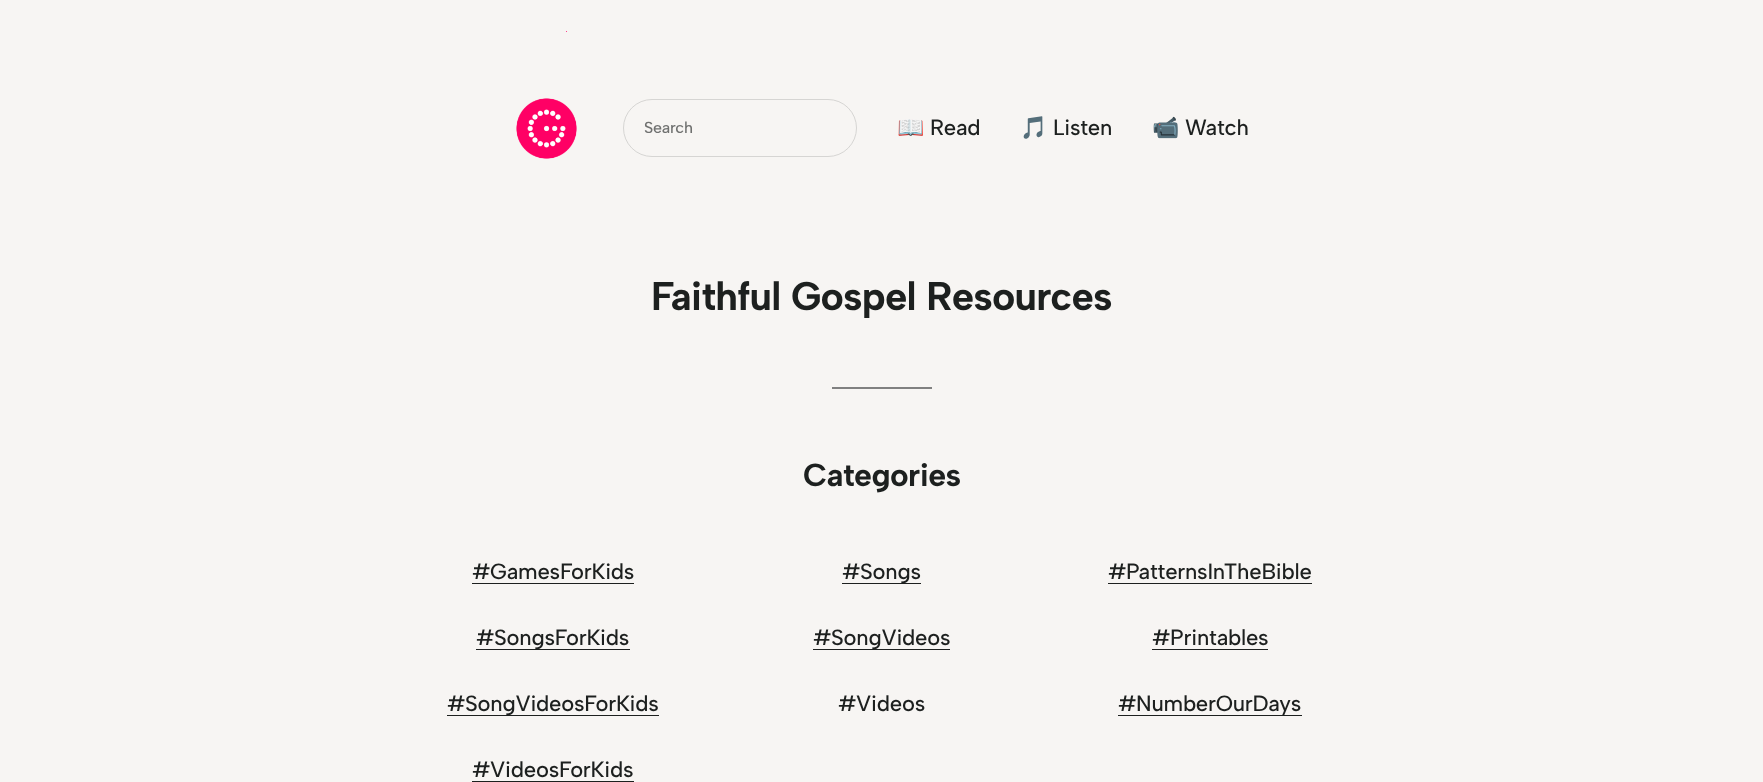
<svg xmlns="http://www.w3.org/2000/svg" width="1763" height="782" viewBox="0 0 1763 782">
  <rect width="100%" height="100%" fill="#f7f5f3"/>
  <rect x="566" y="31" width="1" height="1" fill="#fd468c"/>
  <image x="516" y="98" width="61" height="61" href="img1.png"/>
  <rect x="623.5" y="99.5" width="233" height="57" rx="28.5" fill="none" stroke="#d6d5d3"/>
  <text x="644" y="133" font-family="Albert Sans" font-size="16" font-weight="500" letter-spacing="-0.25" fill="#707170">Search</text>
  <text x="897" y="135" font-family="Noto Color Emoji" font-size="22" letter-spacing="-0.25" fill="#1d201f">📖</text>
  <text x="930" y="135" font-family="Albert Sans" font-size="22" font-weight="500" letter-spacing="-0.25" fill="#1d201f">Read</text>
  <text x="1020" y="135" font-family="Noto Color Emoji" font-size="22" letter-spacing="-0.25" fill="#1d201f">🎵</text>
  <text x="1053" y="135" font-family="Albert Sans" font-size="22" font-weight="500" letter-spacing="-0.25" fill="#1d201f">Listen</text>
  <text x="1152" y="135" font-family="Noto Color Emoji" font-size="22" letter-spacing="-0.25" fill="#1d201f">📹</text>
  <text x="1185" y="135" font-family="Albert Sans" font-size="22" font-weight="500" letter-spacing="-0.25" fill="#1d201f">Watch</text>
  <text x="651" y="310" font-family="Albert Sans" font-size="40" font-weight="bold" letter-spacing="-0.8" fill="#1d201f">Faithful Gospel Resources</text>
  <rect x="832" y="387" width="100" height="2" fill="#808080"/>
  <text x="803" y="486" font-family="Albert Sans" font-size="32" font-weight="bold" letter-spacing="-0.6" fill="#1d201f">Categories</text>
  <text x="472" y="579" font-family="Albert Sans" font-size="22" font-weight="500" letter-spacing="-0.25" fill="#1d201f">#GamesForKids</text>
  <rect x="472" y="583" width="162" height="1" fill="#1d201f"/>
  <rect x="476" y="649" width="154" height="1" fill="#1d201f"/>
  <text x="476" y="645" font-family="Albert Sans" font-size="22" font-weight="500" letter-spacing="-0.25" fill="#1d201f">#SongsForKids</text>
  <rect x="447" y="715" width="212" height="1" fill="#1d201f"/>
  <text x="447" y="711" font-family="Albert Sans" font-size="22" font-weight="500" letter-spacing="-0.25" fill="#1d201f">#SongVideosForKids</text>
  <text x="472" y="777" font-family="Albert Sans" font-size="22" font-weight="500" letter-spacing="-0.25" fill="#1d201f">#VideosForKids</text>
  <rect x="472" y="781" width="162" height="1" fill="#1d201f"/>
  <rect x="842" y="583" width="79" height="1" fill="#1d201f"/>
  <text x="842" y="579" font-family="Albert Sans" font-size="22" font-weight="500" letter-spacing="-0.25" fill="#1d201f">#Songs</text>
  <rect x="813" y="649" width="137" height="1" fill="#1d201f"/>
  <text x="813" y="645" font-family="Albert Sans" font-size="22" font-weight="500" letter-spacing="-0.25" fill="#1d201f">#SongVideos</text>
  <text x="838" y="711" font-family="Albert Sans" font-size="22" font-weight="500" letter-spacing="-0.25" fill="#1d201f">#Videos</text>
  <text x="1108" y="579" font-family="Albert Sans" font-size="22" font-weight="500" letter-spacing="-0.25" fill="#1d201f">#PatternsInTheBible</text>
  <rect x="1108" y="583" width="204" height="1" fill="#1d201f"/>
  <text x="1152" y="645" font-family="Albert Sans" font-size="22" font-weight="500" letter-spacing="-0.25" fill="#1d201f">#Printables</text>
  <rect x="1152" y="649" width="116" height="1" fill="#1d201f"/>
  <rect x="1118" y="715" width="184" height="1" fill="#1d201f"/>
  <text x="1118" y="711" font-family="Albert Sans" font-size="22" font-weight="500" letter-spacing="-0.25" fill="#1d201f">#NumberOurDays</text>
</svg>
